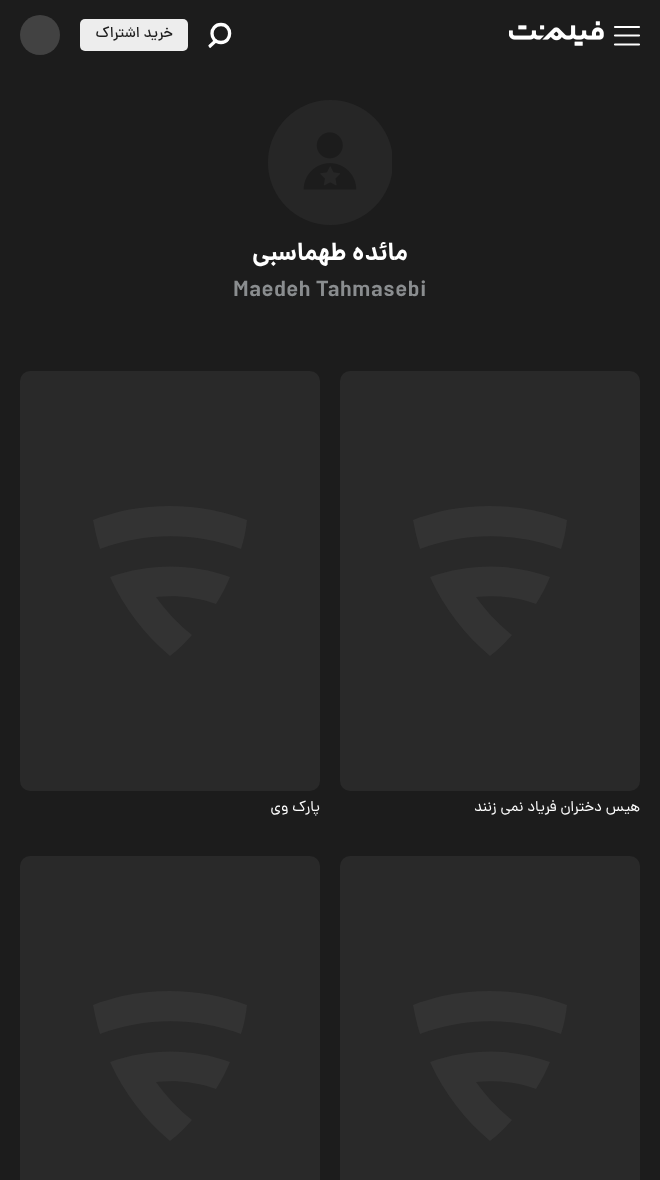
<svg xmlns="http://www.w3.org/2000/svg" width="660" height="1180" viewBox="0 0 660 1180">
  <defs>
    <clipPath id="clip1"><rect x="208" y="23" width="26" height="26" rx="5"/></clipPath>
  </defs>
  <rect width="100%" height="100%" fill="#1c1c1c"/>
  <path d="M639 27H615M639 35.5H615M639 44.5H615" fill="none" stroke="#ffffff" stroke-width="2.2" stroke-linecap="round"/>
  <image x="509" y="21" width="95" height="25" href="img1.png"/>
  <path d="M221 42.5C232.5 42.5 232.5 24.5 221 24.5C209 24.5 209 42.5 221 42.5Z" fill="none" stroke="#ffffff" stroke-width="3.3" stroke-linecap="round"/>
  <g clip-path="url(#clip1)">
    <path d="M215.5 41L209.5 46.5" fill="none" stroke="#ffffff" stroke-width="3.3" stroke-linecap="round"/>
  </g>
  <rect x="80" y="19" width="108" height="32" rx="5" fill="#ededed"/>
  <text x="173" y="37" font-family="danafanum" font-size="15" font-weight="500" direction="rtl" fill="#1c1c1c">خرید اشتراک</text>
  <circle cx="40" cy="35" r="20" fill="#424242"/>
  <image x="268" y="100" width="124" height="125" href="img2.png"/>
  <text x="408" y="260" font-family="danafanum" font-size="25" font-weight="bold" direction="rtl" fill="#ffffff">مائده طهماسبی</text>
  <text x="233" y="296" font-family="danafanum" font-size="22.5" font-weight="600" fill="#8a8d8f">Maedeh Tahmasebi</text>
  <rect x="340" y="371" width="300" height="420" rx="10" fill="#292929"/>
  <path d="M442 511C484 502 528 505 567 520C566 530 564 540 561 549C516 532 465 532 420 549C417 540 415 530 413 520C422 516 432 514 442 511ZM430 577C469 563 512 563 550 577C546 587 541 596 536 604C517 597 496 595 476 597C486 611 498 624 512 635C505 643 498 650 490 656C465 635 444 608 430 577Z" fill="#333333" fill-rule="evenodd"/>
  <text x="640" y="811" font-family="danafanum" font-size="15" direction="rtl" fill="#ffffff">هیس دختران فریاد نمی زنند</text>
  <rect x="20" y="371" width="300" height="420" rx="10" fill="#292929"/>
  <path d="M122 511C164 502 208 505 247 520C246 530 244 540 241 549C196 532 145 532 100 549C97 540 95 530 93 520C102 516 112 514 122 511ZM110 577C149 563 192 563 230 577C226 587 221 596 216 604C197 597 176 595 156 597C166 611 178 624 192 635C185 643 178 650 170 656C145 635 124 608 110 577Z" fill="#333333" fill-rule="evenodd"/>
  <text x="320" y="811" font-family="danafanum" font-size="15" direction="rtl" fill="#ffffff">پارک وی</text>
  <rect x="340" y="856" width="300" height="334" rx="10" fill="#292929"/>
  <path d="M442 996C484 987 528 990 567 1005C566 1015 564 1025 561 1034C516 1017 465 1017 420 1034C417 1025 415 1015 413 1005C422 1001 432 999 442 996ZM430 1062C469 1048 512 1048 550 1062C546 1072 541 1081 536 1089C517 1082 496 1080 476 1082C486 1096 498 1109 512 1120C505 1128 498 1135 490 1141C465 1120 444 1093 430 1062Z" fill="#333333" fill-rule="evenodd"/>
  <rect x="20" y="856" width="300" height="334" rx="10" fill="#292929"/>
  <path d="M122 996C164 987 208 990 247 1005C246 1015 244 1025 241 1034C196 1017 145 1017 100 1034C97 1025 95 1015 93 1005C102 1001 112 999 122 996ZM110 1062C149 1048 192 1048 230 1062C226 1072 221 1081 216 1089C197 1082 176 1080 156 1082C166 1096 178 1109 192 1120C185 1128 178 1135 170 1141C145 1120 124 1093 110 1062Z" fill="#333333" fill-rule="evenodd"/>
</svg>
